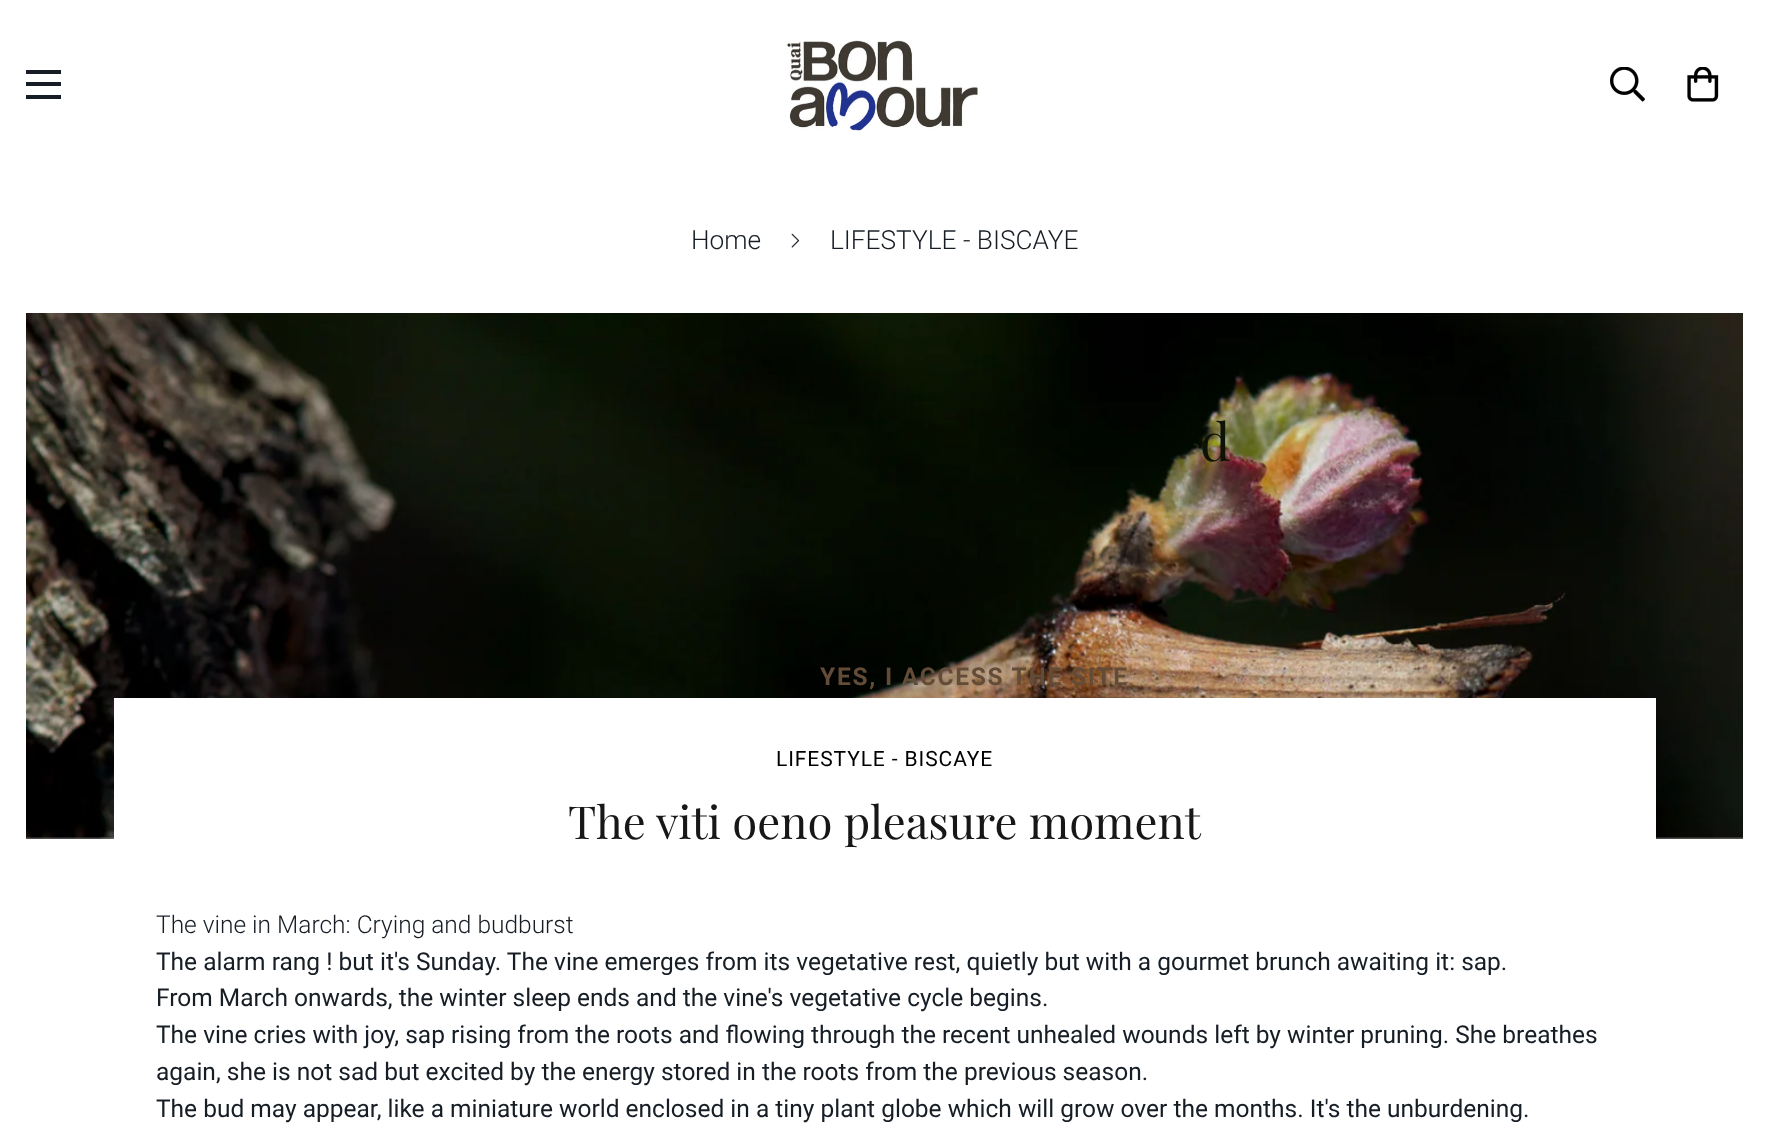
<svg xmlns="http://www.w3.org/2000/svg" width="1769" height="1125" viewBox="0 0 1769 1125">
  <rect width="100%" height="100%" fill="#ffffff"/>
  <rect x="26" y="82" width="35" height="4" fill="#161d25"/>
  <rect x="26" y="70" width="35" height="4" fill="#161d25"/>
  <rect x="26" y="95" width="35" height="4" fill="#161d25"/>
  <image x="786" y="40" width="193" height="91" href="img1.png"/>
  <image x="1610" y="67" width="35" height="35" href="img2.png"/>
  <image x="1687" y="67" width="32" height="35" href="img3.png"/>
  <text x="691" y="249" font-family="Roboto" font-size="26.25" font-weight="300" fill="#161d25">Home</text>
  <image x="791" y="233" width="9" height="15" href="img4.png"/>
  <text x="830" y="249" font-family="Roboto" font-size="26.25" font-weight="300" fill="#161d25">LIFESTYLE - BISCAYE</text>
  <image x="26" y="313" width="1717" height="526" href="img5.png"/>
  <rect x="114" y="698" width="1542" height="141" fill="#ffffff"/>
  <text x="776" y="766" font-family="Roboto" font-size="21" letter-spacing="0.9" fill="#000000">LIFESTYLE - BISCAYE</text>
  <text x="568" y="839" font-family="Playfair Display" font-size="45.5" fill="#171717">The viti oeno pleasure moment</text>
  <text x="156" y="933" font-family="Roboto" font-size="24.5" font-weight="300" fill="#161d25">The vine in March: Crying and budburst</text>
  <text x="156" y="970" font-family="Roboto" font-size="24.5" fill="#161d25">The alarm rang ! but it's Sunday. The vine emerges from its vegetative rest, quietly but with a gourmet brunch awaiting it: sap.</text>
  <text x="156" y="1006" font-family="Roboto" font-size="24.5" fill="#161d25">From March onwards, the winter sleep ends and the vine's vegetative cycle begins.</text>
  <text x="156" y="1043" font-family="Roboto" font-size="24.5" fill="#161d25">The vine cries with joy, sap rising from the roots and flowing through the recent unhealed wounds left by winter pruning. She breathes</text>
  <text x="156" y="1080" font-family="Roboto" font-size="24.5" fill="#161d25">again, she is not sad but excited by the energy stored in the roots from the previous season.</text>
  <text x="156" y="1117" font-family="Roboto" font-size="24.5" fill="#161d25">The bud may appear, like a miniature world enclosed in a tiny plant globe which will grow over the months. It's the unburdening.</text>
  <text x="1200" y="461" font-family="Playfair Display" font-size="52" fill="#0d1306">d</text>
  <text x="820" y="685" font-family="Roboto" font-size="24.5" font-weight="bold" letter-spacing="1.75" fill="#634c37">YES, I ACCESS THE SITE</text>
</svg>
